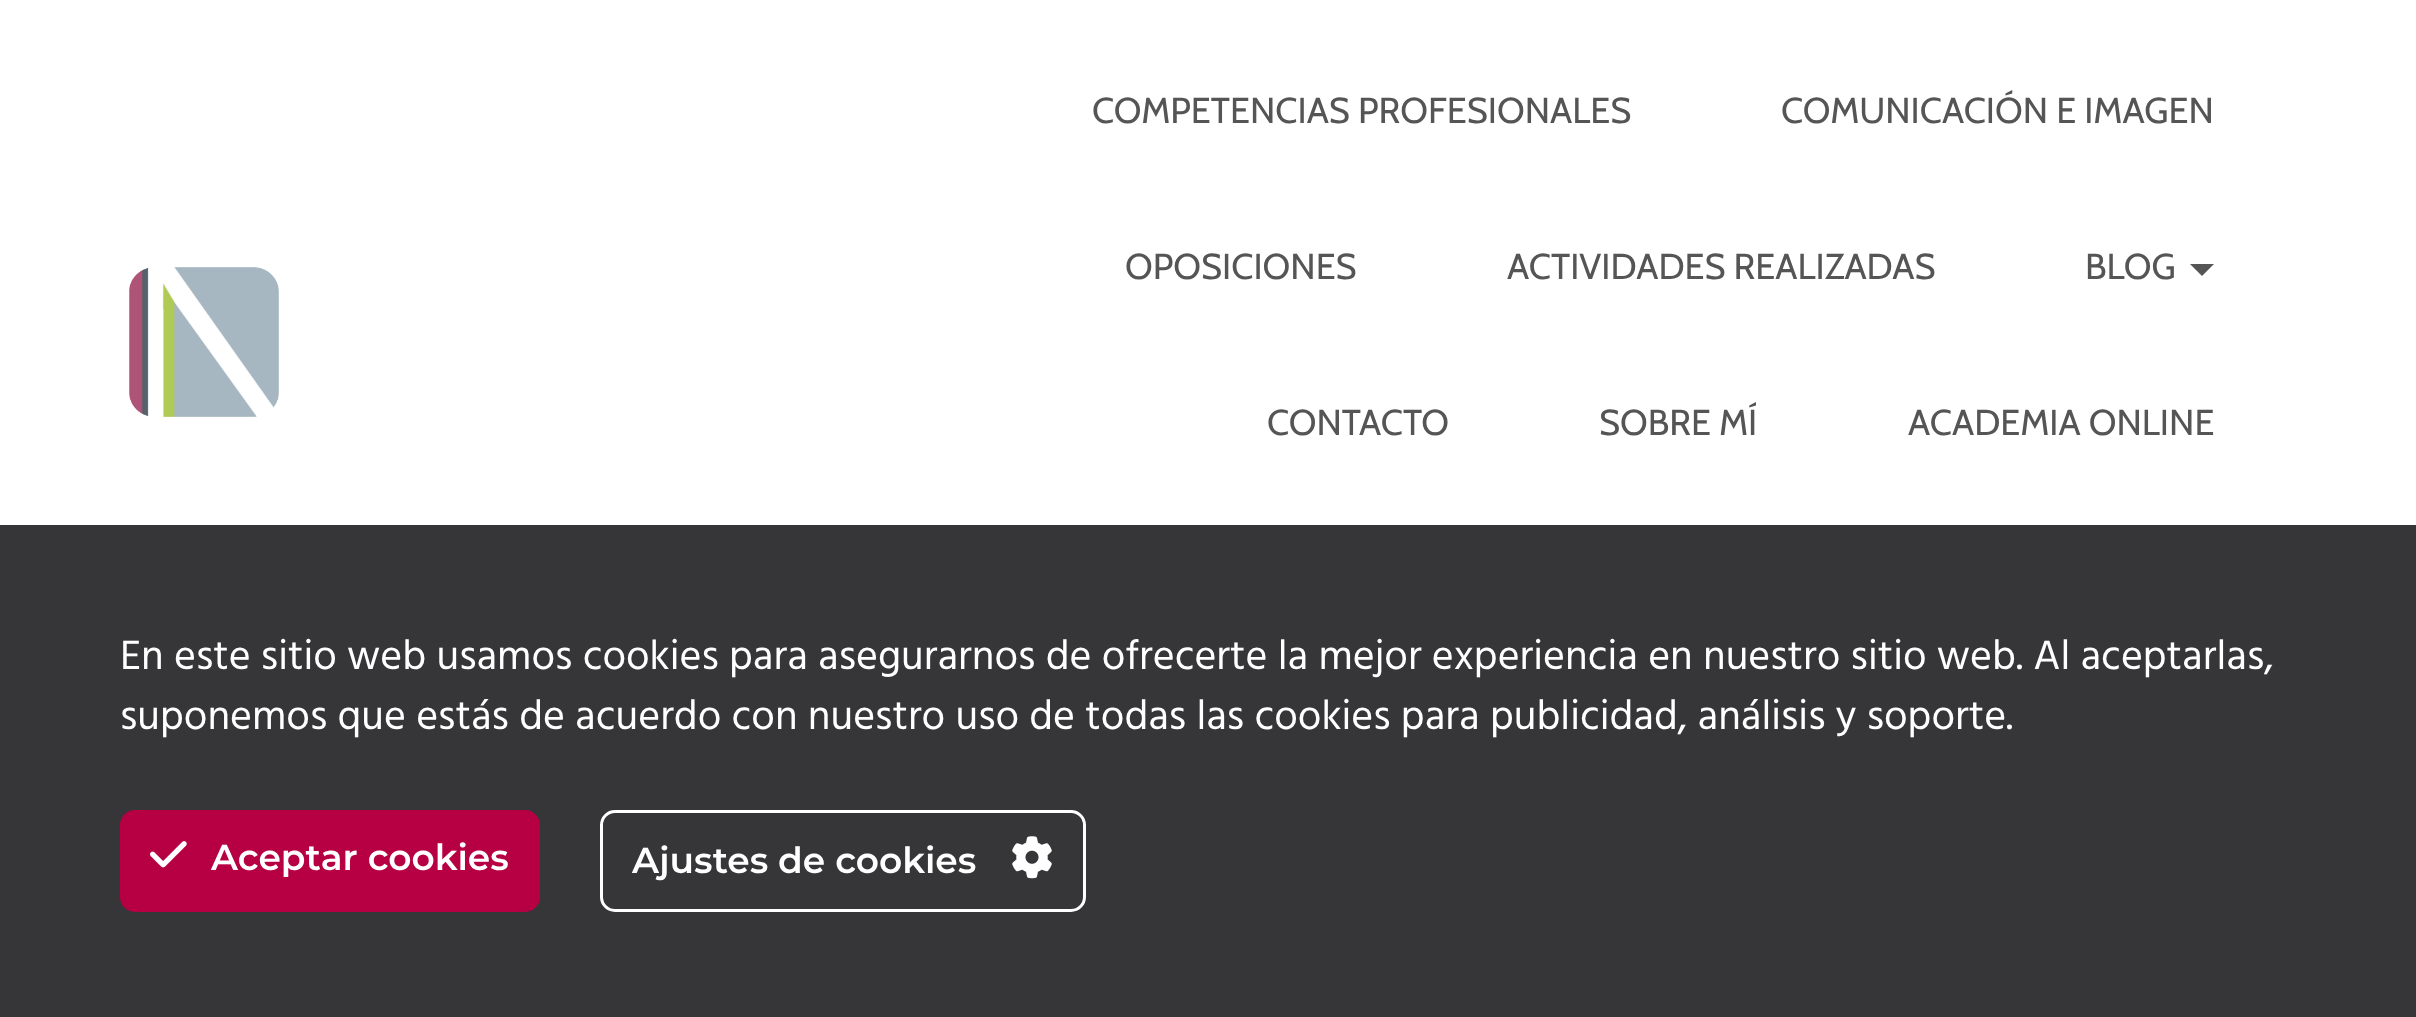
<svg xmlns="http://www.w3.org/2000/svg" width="2416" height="1017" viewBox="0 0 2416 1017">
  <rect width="100%" height="100%" fill="#ffffff"/>
  <image x="129" y="267" width="150" height="150" href="img1.png"/>
  <text x="1092" y="123" font-family="Cabin" font-size="36" fill="#555555">COMPETENCIAS PROFESIONALES</text>
  <text x="1781" y="123" font-family="Cabin" font-size="36" fill="#555555">COMUNICACIÓN E IMAGEN</text>
  <text x="1125" y="279" font-family="Cabin" font-size="36" fill="#555555">OPOSICIONES</text>
  <text x="1507" y="279" font-family="Cabin" font-size="36" fill="#555555">ACTIVIDADES REALIZADAS</text>
  <text x="2085" y="279" font-family="Cabin" font-size="36" fill="#555555">BLOG</text>
  <path d="M2190 264H2214L2202 276Z" fill="#555555"/>
  <text x="1267" y="435" font-family="Cabin" font-size="36" fill="#555555">CONTACTO</text>
  <text x="1599" y="435" font-family="Cabin" font-size="36" fill="#555555">SOBRE MÍ</text>
  <text x="1908" y="435" font-family="Cabin" font-size="36" fill="#555555">ACADEMIA ONLINE</text>
  <rect x="0" y="525" width="2416" height="492" fill="#363537"/>
  <text x="120" y="669" font-family="Hind" font-size="42" fill="#ffffff">En este sitio web usamos cookies para asegurarnos de ofrecerte la mejor experiencia en nuestro sitio web. Al aceptarlas,</text>
  <text x="120" y="729" font-family="Hind" font-size="42" fill="#ffffff">suponemos que estás de acuerdo con nuestro uso de todas las cookies para publicidad, análisis y soporte.</text>
  <rect x="120" y="810" width="420" height="102" rx="15" fill="#b70043"/>
  <image x="150" y="841" width="37" height="27" href="img2.png"/>
  <text x="211" y="870" font-family="Montserrat" font-size="36" font-weight="600" fill="#ffffff">Aceptar cookies</text>
  <rect x="601.5" y="811.5" width="483" height="99" rx="13.5" fill="none" stroke="#ffffff" stroke-width="3"/>
  <text x="632" y="873" font-family="Montserrat" font-size="36" font-weight="600" fill="#ffffff">Ajustes de cookies</text>
  <image x="1012" y="836" width="40" height="43" href="img3.png"/>
</svg>
